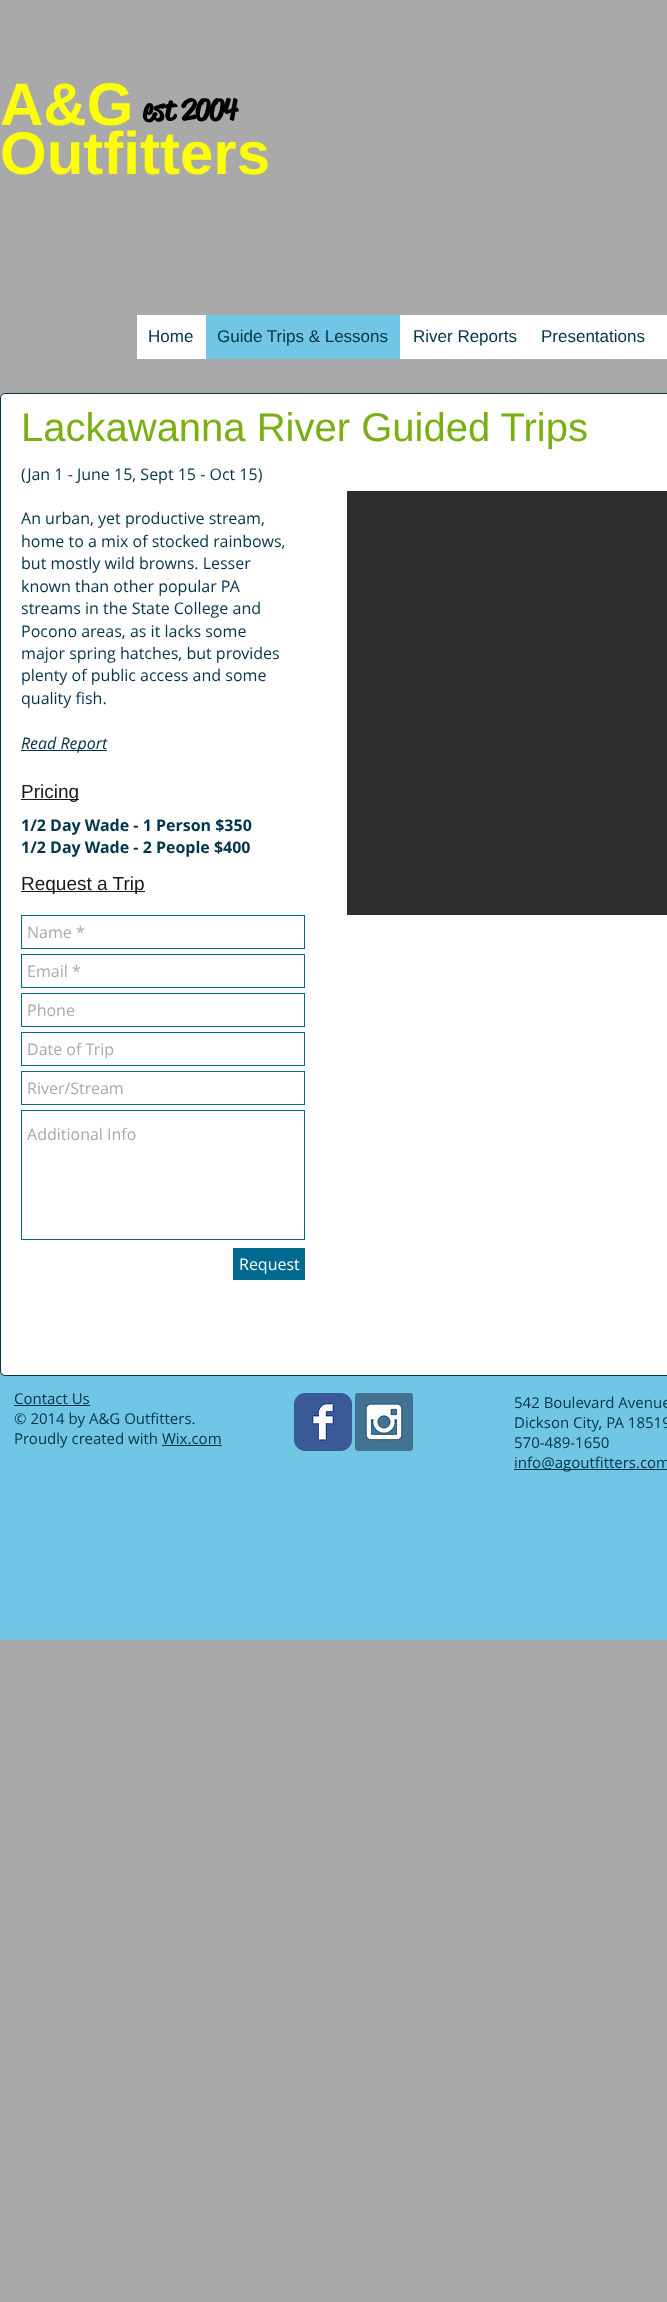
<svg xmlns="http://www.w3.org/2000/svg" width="667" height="2302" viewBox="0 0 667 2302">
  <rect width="100%" height="100%" fill="#a9a9a9"/>
  <text x="0" y="125" font-family="Liberation Sans" font-size="60" font-weight="bold" fill="#fdff05">A&amp;G</text>
  <text x="0" y="174" font-family="Liberation Sans" font-size="60" font-weight="bold" fill="#fdff05">Outfitters</text>
  <text x="143" y="120" font-family="'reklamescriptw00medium'" font-size="30" font-weight="bold" fill="#000000">est 2004</text>
  <rect x="137" y="315" width="530" height="44" fill="#ffffff"/>
  <text x="148" y="342" font-family="Liberation Sans" font-size="17" fill="#003448">Home</text>
  <rect x="206" y="315" width="194" height="44" fill="#72c6e5"/>
  <text x="217" y="342" font-family="Liberation Sans" font-size="17" fill="#003448">Guide Trips &amp; Lessons</text>
  <text x="413" y="342" font-family="Liberation Sans" font-size="17" fill="#003448">River Reports</text>
  <text x="541" y="342" font-family="Liberation Sans" font-size="17" fill="#003448">Presentations</text>
  <rect x="0.5" y="393.5" width="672" height="982" rx="4.5" fill="#ffffff" stroke="#003448"/>
  <text x="21" y="441" font-family="Liberation Sans" font-size="40" fill="#79af13">Lackawanna River Guided Trips</text>
  <text x="21" y="480" font-family="Open Sans" font-size="16" fill="#003448">(Jan 1 - June 15, Sept 15 - Oct 15)</text>
  <text x="21" y="524" font-family="Open Sans" font-size="16" fill="#003448">An urban, yet productive stream,</text>
  <text x="21" y="547" font-family="Open Sans" font-size="16" fill="#003448">home to a mix of stocked rainbows,</text>
  <text x="21" y="569" font-family="Open Sans" font-size="16" fill="#003448">but mostly wild browns. Lesser</text>
  <text x="21" y="592" font-family="Open Sans" font-size="16" fill="#003448">known than other popular PA</text>
  <text x="21" y="614" font-family="Open Sans" font-size="16" fill="#003448">streams in the State College and</text>
  <text x="21" y="637" font-family="Open Sans" font-size="16" fill="#003448">Pocono areas, as it lacks some</text>
  <text x="21" y="659" font-family="Open Sans" font-size="16" fill="#003448">major spring hatches, but provides</text>
  <text x="21" y="681" font-family="Open Sans" font-size="16" fill="#003448">plenty of public access and some</text>
  <text x="21" y="704" font-family="Open Sans" font-size="16" fill="#003448">quality fish.</text>
  <rect x="21" y="750" width="86" height="1" fill="#003448"/>
  <text x="21" y="749" font-family="Open Sans" font-size="16" font-style="italic" fill="#003448">Read Report</text>
  <rect x="347" y="491" width="320" height="424" fill="#2f2e2e"/>
  <rect x="21" y="799" width="58" height="1" fill="#181919"/>
  <text x="21" y="798" font-family="Liberation Sans" font-size="19" fill="#181919">Pricing</text>
  <text x="21" y="831" font-family="Open Sans" font-size="16" font-weight="bold" fill="#003448">1/2 Day Wade - 1 Person $350</text>
  <text x="21" y="853" font-family="Open Sans" font-size="16" font-weight="bold" fill="#003448">1/2 Day Wade - 2 People $400</text>
  <rect x="21" y="891" width="124" height="1" fill="#181919"/>
  <text x="21" y="890" font-family="Liberation Sans" font-size="19" fill="#181919">Request a Trip</text>
  <rect x="21.5" y="915.5" width="283" height="33" fill="none" stroke="#006990"/>
  <text x="27" y="938" font-family="Open Sans" font-size="16" fill="#a9a9a9">Name *</text>
  <rect x="21.5" y="954.5" width="283" height="33" fill="none" stroke="#006990"/>
  <text x="27" y="977" font-family="Open Sans" font-size="16" fill="#a9a9a9">Email *</text>
  <rect x="21.5" y="993.5" width="283" height="33" fill="none" stroke="#006990"/>
  <text x="27" y="1016" font-family="Open Sans" font-size="16" fill="#a9a9a9">Phone</text>
  <rect x="21.5" y="1032.5" width="283" height="33" fill="none" stroke="#006990"/>
  <text x="27" y="1055" font-family="Open Sans" font-size="16" fill="#a9a9a9">Date of Trip</text>
  <rect x="21.5" y="1071.5" width="283" height="33" fill="none" stroke="#006990"/>
  <text x="27" y="1094" font-family="Open Sans" font-size="16" fill="#a9a9a9">River/Stream</text>
  <rect x="21.5" y="1110.5" width="283" height="129" fill="none" stroke="#006990"/>
  <text x="27" y="1140" font-family="Open Sans" font-size="16" fill="#a9a9a9">Additional Info</text>
  <rect x="233" y="1248" width="72" height="32" fill="#006990"/>
  <text x="239" y="1270" font-family="Open Sans" font-size="16" fill="#ffffff">Request</text>
  <rect x="0" y="1376" width="667" height="264" fill="#72c6e5"/>
  <text x="14" y="1404" font-family="Open Sans" font-size="15" fill="#003448">Contact Us</text>
  <rect x="14" y="1405" width="76" height="1" fill="#003448"/>
  <text x="14" y="1424" font-family="Open Sans" font-size="15" fill="#003448">© 2014 by A&amp;G Outfitters.</text>
  <text x="14" y="1444" font-family="Open Sans" font-size="15" fill="#003448">Proudly created with Wix.com</text>
  <rect x="162" y="1445" width="60" height="1" fill="#003448"/>
  <image x="294" y="1393" width="58" height="58" href="img1.png"/>
  <image x="355" y="1393" width="58" height="58" href="img2.png"/>
  <text x="514" y="1408" font-family="Open Sans" font-size="15" fill="#003448">542 Boulevard Avenue</text>
  <text x="514" y="1428" font-family="Open Sans" font-size="15" fill="#003448">Dickson City, PA 18519</text>
  <text x="514" y="1448" font-family="Open Sans" font-size="15" fill="#003448">570-489-1650</text>
  <rect x="514" y="1469" width="153" height="1" fill="#003448"/>
  <text x="514" y="1468" font-family="Open Sans" font-size="15" fill="#003448">info@agoutfitters.com</text>
</svg>
